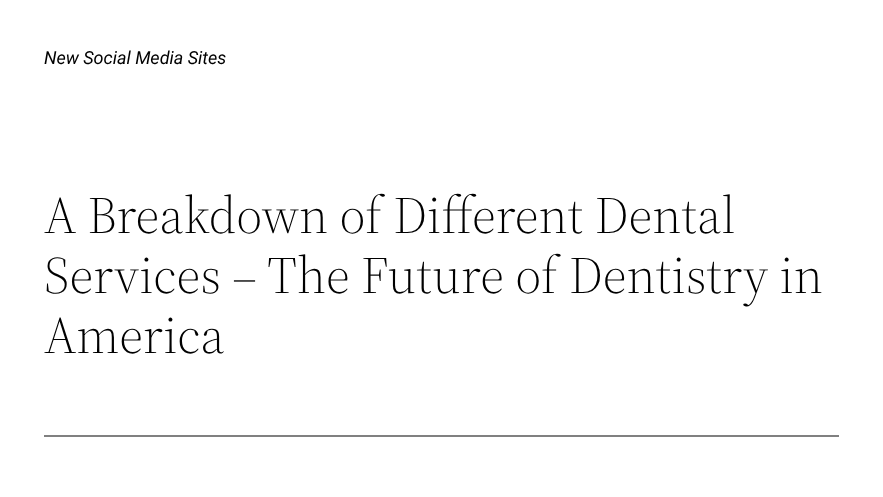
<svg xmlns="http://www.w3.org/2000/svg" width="883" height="497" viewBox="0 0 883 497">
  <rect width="100%" height="100%" fill="#ffffff"/>
  <text x="44" y="64" font-family="Roboto" font-size="18" font-style="italic" fill="#000000">New Social Media Sites</text>
  <text x="44" y="233" font-family="'Source Serif 4'" font-size="52" font-weight="300" fill="#000000">A Breakdown of Different Dental</text>
  <text x="44" y="293" font-family="'Source Serif 4'" font-size="52" font-weight="300" fill="#000000">Services – The Future of Dentistry in</text>
  <text x="44" y="353" font-family="'Source Serif 4'" font-size="52" font-weight="300" fill="#000000">America</text>
  <rect x="44" y="435" width="795" height="2" fill="#808080"/>
</svg>
